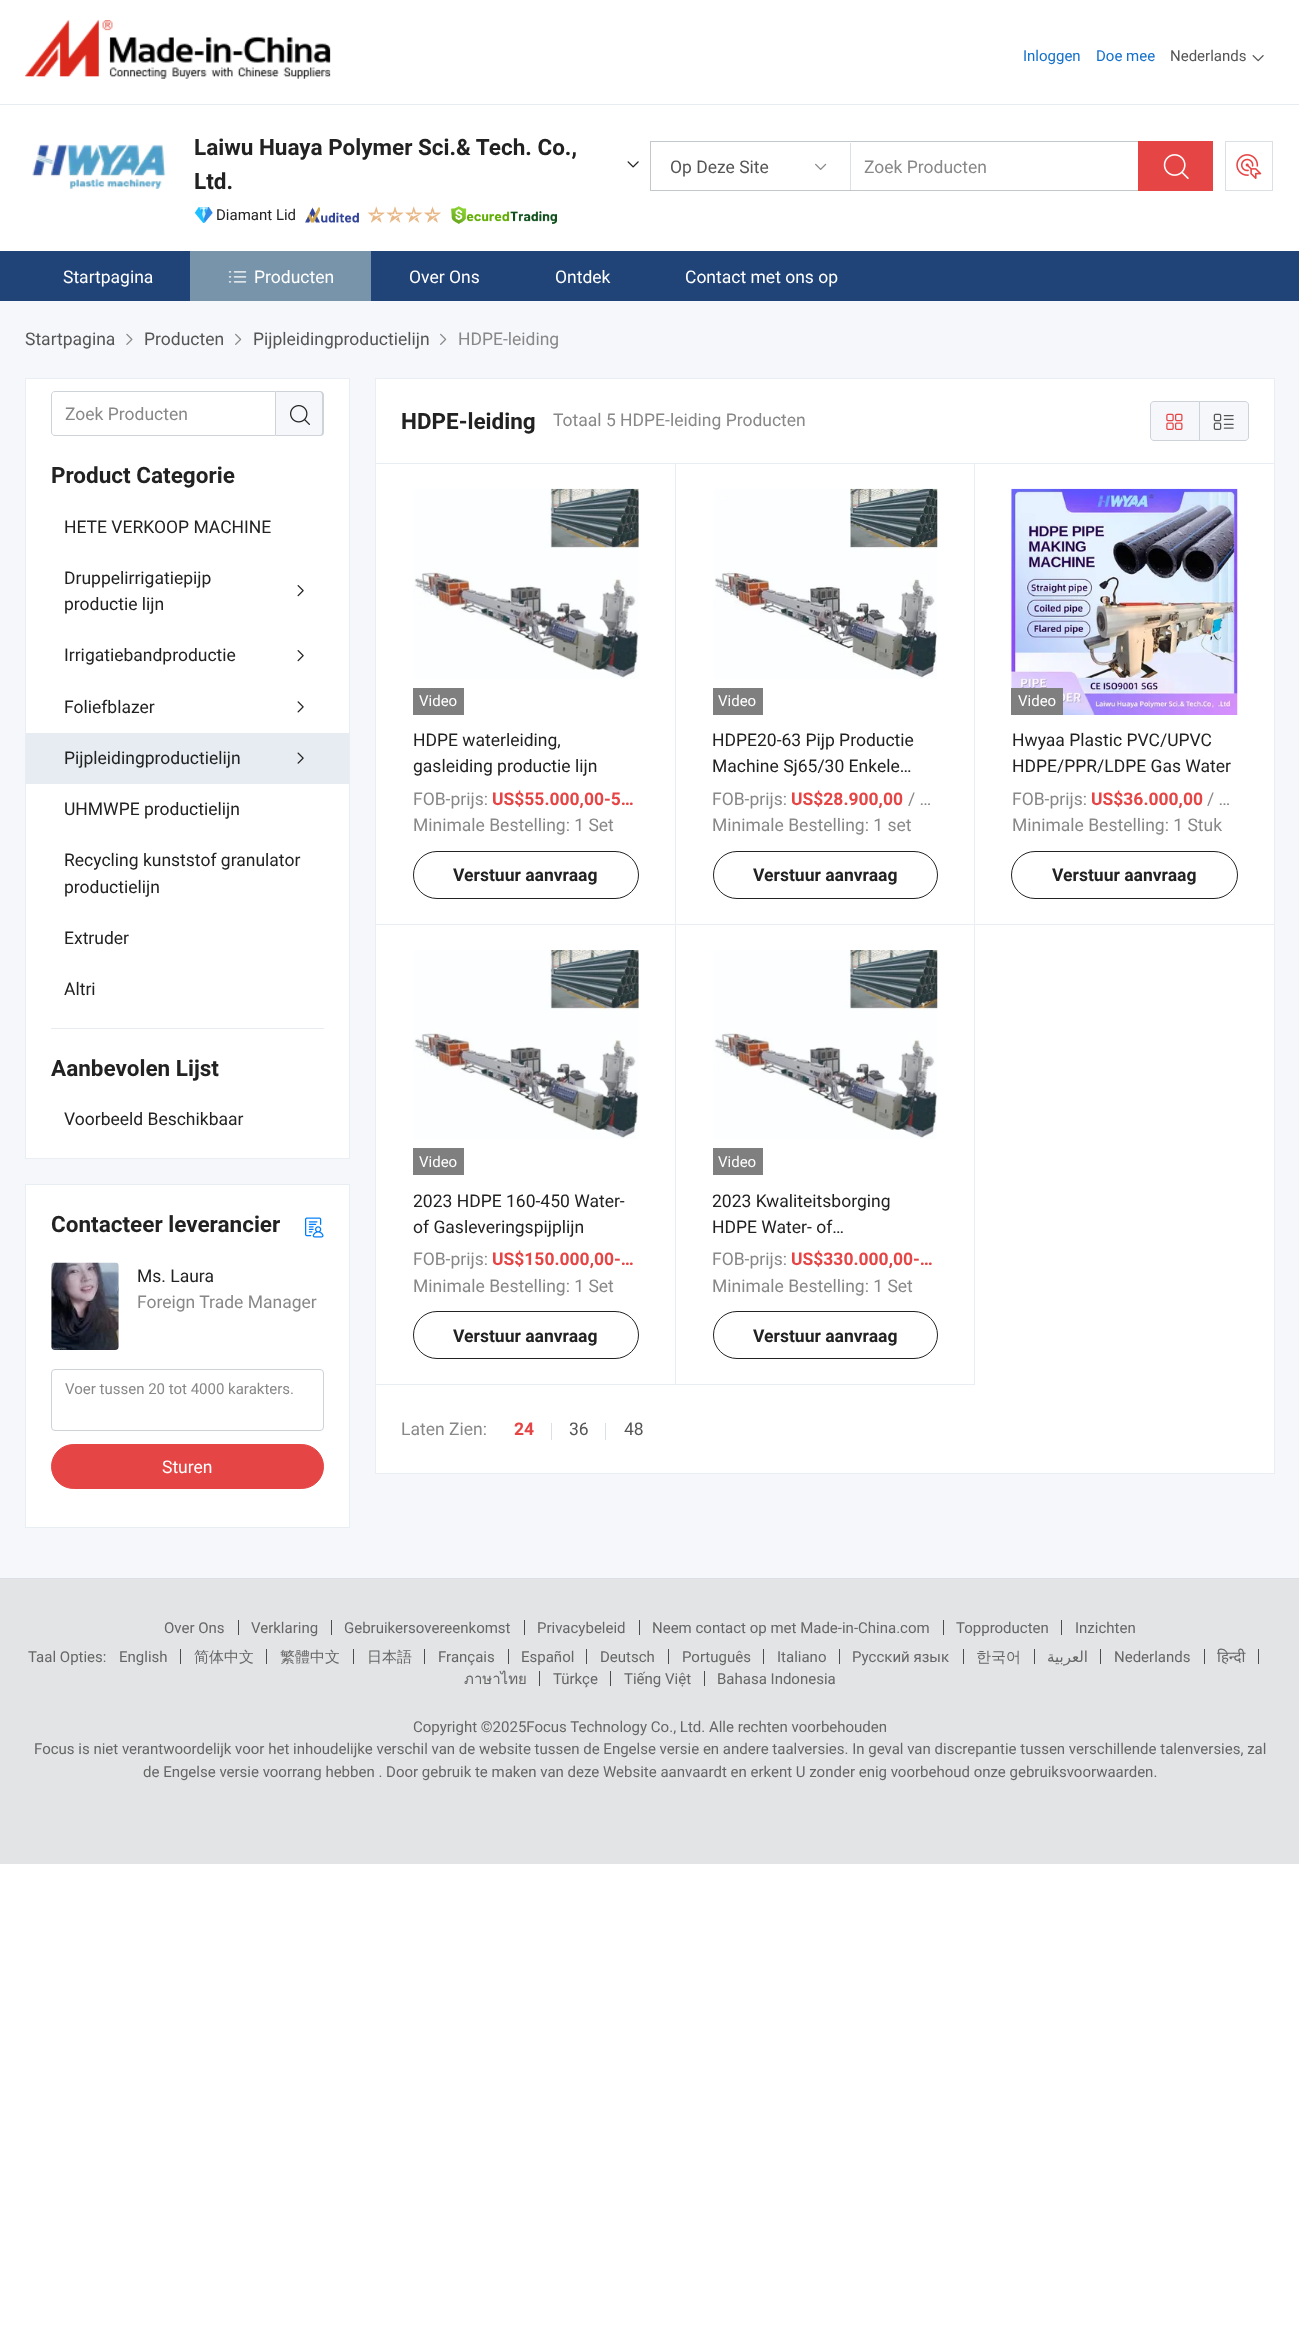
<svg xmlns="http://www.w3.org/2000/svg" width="1299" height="2328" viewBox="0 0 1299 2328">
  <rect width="100%" height="100%" fill="#ffffff"/>
  <rect x="0" y="104" width="1299" height="1" fill="#e6ecf2"/>
  <image x="32" y="144" width="134" height="45" href="img1.png"/>
  <text x="194" y="155" font-family="Roboto" font-size="22.5" font-weight="bold" fill="#222222">Laiwu Huaya Polymer Sci.&amp; Tech. Co.,</text>
  <text x="194" y="189" font-family="Roboto" font-size="22.5" font-weight="bold" fill="#222222">Ltd.</text>
  <image x="627" y="161" width="12" height="7" href="img2.png"/>
  <image x="195" y="207" width="18" height="16" href="img3.png"/>
  <text x="216" y="220" font-family="Roboto" font-size="15" fill="#222222">Diamant Lid</text>
  <image x="305" y="207" width="54" height="16" href="img4.png"/>
  <image x="367" y="206" width="18" height="17" href="img5.png"/>
  <image x="386" y="206" width="18" height="17" href="img6.png"/>
  <image x="405" y="206" width="18" height="17" href="img7.png"/>
  <image x="424" y="206" width="17" height="17" href="img8.png"/>
  <image x="451" y="206" width="106" height="18" href="img9.png"/>
  <image x="25" y="20" width="306" height="59" href="img10.png"/>
  <text x="1023" y="61" font-family="Roboto" font-size="15" fill="#1470cc">Inloggen</text>
  <text x="1096" y="61" font-family="Roboto" font-size="15" fill="#1470cc">Doe mee</text>
  <text x="1170" y="61" font-family="Roboto" font-size="15" fill="#555555">Nederlands</text>
  <image x="1252" y="55" width="12" height="7" href="img11.png"/>
  <rect x="650.5" y="141.5" width="562" height="49" fill="none" stroke="#c2c7cc"/>
  <rect x="850" y="143" width="1" height="47" fill="#dae0e5"/>
  <text x="670" y="173" font-family="Roboto" font-size="17.5" fill="#555555">Op Deze Site</text>
  <image x="815" y="163" width="12" height="7" href="img12.png"/>
  <text x="864" y="173" font-family="Roboto" font-size="17.5" fill="#888888">Zoek Producten</text>
  <rect x="1138" y="141" width="75" height="50" fill="#e64545"/>
  <image x="1163" y="154" width="26" height="25" href="img13.png"/>
  <rect x="1225.5" y="141.5" width="47" height="49" fill="none" stroke="#dae0e5"/>
  <image x="1236" y="154" width="26" height="26" href="img14.png"/>
  <rect x="0" y="251" width="1299" height="50" fill="#214478"/>
  <text x="63" y="283" font-family="Roboto" font-size="17.5" fill="#ffffff">Startpagina</text>
  <rect x="190" y="251" width="181" height="50" fill="#7894aa"/>
  <image x="228" y="271" width="19" height="12" href="img15.png"/>
  <text x="254" y="283" font-family="Roboto" font-size="17.5" fill="#ffffff">Producten</text>
  <text x="409" y="283" font-family="Roboto" font-size="17.5" fill="#ffffff">Over Ons</text>
  <text x="555" y="283" font-family="Roboto" font-size="17.5" fill="#ffffff">Ontdek</text>
  <text x="685" y="283" font-family="Roboto" font-size="17.5" fill="#ffffff">Contact met ons op</text>
  <rect x="0" y="301" width="1299" height="1277" fill="#f5f7fa"/>
  <text x="25" y="345" font-family="Roboto" font-size="17.5" fill="#555555">Startpagina</text>
  <image x="126" y="333" width="7" height="12" href="img16.png"/>
  <text x="144" y="345" font-family="Roboto" font-size="17.5" fill="#555555">Producten</text>
  <image x="235" y="333" width="7" height="12" href="img17.png"/>
  <text x="253" y="345" font-family="Roboto" font-size="17.5" fill="#555555">Pijpleidingproductielijn</text>
  <image x="440" y="333" width="7" height="12" href="img17.png"/>
  <text x="458" y="345" font-family="Roboto" font-size="17.5" fill="#888888">HDPE-leiding</text>
  <rect x="25.5" y="378.5" width="324" height="780" fill="#ffffff" stroke="#e9eef4"/>
  <path d="M55 391.5H275.5V435.5H55C53 435.5 51.5 434 51.5 432V395C51.5 393 53 391.5 55 391.5Z" fill="none" stroke="#ced3d9"/>
  <text x="65" y="420" font-family="Roboto" font-size="17.5" fill="#888888">Zoek Producten</text>
  <path d="M276 391H320C322 391 324 393 324 395V432C324 434 322 436 320 436H276Z" fill="#f5f7fa"/>
  <path d="M276 391H320C322 391 324 393 324 395V432C324 435 322 436 320 436H276ZM276 392H320C321 392 322 394 322 395V432C322 434 321 435 320 435H276Z" fill="#ced3d9" fill-rule="evenodd"/>
  <image x="290" y="405" width="20" height="20" href="img18.png"/>
  <rect x="51" y="1028" width="273" height="1" fill="#e6ecf2"/>
  <text x="51" y="483" font-family="Roboto" font-size="22.5" font-weight="bold" fill="#222222">Product Categorie</text>
  <text x="64" y="533" font-family="Roboto" font-size="17.5" fill="#222222">HETE VERKOOP MACHINE</text>
  <text x="64" y="584" font-family="Roboto" font-size="17.5" fill="#222222">Druppelirrigatiepijp</text>
  <image x="297" y="585" width="7" height="12" href="img19.png"/>
  <text x="64" y="610" font-family="Roboto" font-size="17.5" fill="#222222">productie lijn</text>
  <text x="64" y="661" font-family="Roboto" font-size="17.5" fill="#222222">Irrigatiebandproductie</text>
  <image x="297" y="650" width="7" height="12" href="img19.png"/>
  <text x="64" y="713" font-family="Roboto" font-size="17.5" fill="#222222">Foliefblazer</text>
  <image x="297" y="701" width="7" height="12" href="img20.png"/>
  <rect x="26" y="733" width="323" height="51" fill="#e6ecf2"/>
  <text x="64" y="764" font-family="Roboto" font-size="17.5" fill="#222222">Pijpleidingproductielijn</text>
  <image x="297" y="752" width="7" height="12" href="img21.png"/>
  <text x="64" y="815" font-family="Roboto" font-size="17.5" fill="#222222">UHMWPE productielijn</text>
  <text x="64" y="866" font-family="Roboto" font-size="17.5" fill="#222222">Recycling kunststof granulator</text>
  <text x="64" y="893" font-family="Roboto" font-size="17.5" fill="#222222">productielijn</text>
  <text x="64" y="944" font-family="Roboto" font-size="17.5" fill="#222222">Extruder</text>
  <text x="64" y="995" font-family="Roboto" font-size="17.5" fill="#222222">Altri</text>
  <text x="51" y="1076" font-family="Roboto" font-size="22.5" font-weight="bold" fill="#222222">Aanbevolen Lijst</text>
  <text x="64" y="1125" font-family="Roboto" font-size="17.5" fill="#222222">Voorbeeld Beschikbaar</text>
  <rect x="25.5" y="1184.5" width="324" height="343" fill="#ffffff" stroke="#e9eef4"/>
  <text x="51" y="1232" font-family="Roboto" font-size="22.5" font-weight="bold" fill="#222222">Contacteer leverancier</text>
  <image x="305" y="1217" width="19" height="21" href="img22.png"/>
  <image x="51" y="1262" width="68" height="88" href="img23.png"/>
  <text x="137" y="1282" font-family="Roboto" font-size="17.5" fill="#222222">Ms. Laura</text>
  <text x="137" y="1308" font-family="Roboto" font-size="17.5" fill="#888888">Foreign Trade Manager</text>
  <rect x="51.5" y="1369.5" width="272" height="61" rx="3.5" fill="none" stroke="#ced3d9"/>
  <text x="65" y="1394" font-family="Roboto" font-size="15" fill="#888888">Voer tussen 20 tot 4000 karakters.</text>
  <rect x="51.5" y="1444.5" width="272" height="44" rx="22" fill="#e64545" stroke="#e64545"/>
  <text x="162" y="1473" font-family="Roboto" font-size="17.5" fill="#ffffff">Sturen</text>
  <rect x="375.5" y="378.5" width="899" height="1095" fill="#ffffff" stroke="#e9eef4"/>
  <text x="401" y="429" font-family="Roboto" font-size="22.5" font-weight="bold" fill="#222222">HDPE-leiding</text>
  <text x="553" y="426" font-family="Roboto" font-size="17.5" fill="#888888">Totaal 5 HDPE-leiding Producten</text>
  <path d="M1154 401.5H1199.5V440.5H1154C1152 440.5 1150.5 439 1150.5 437V405C1150.5 403 1152 401.5 1154 401.5Z" fill="#f5f7fa" stroke="#ced3d9"/>
  <image x="1166" y="413" width="17" height="17" href="img24.png"/>
  <path d="M1199.5 401.5H1245C1247 401.5 1248.5 403 1248.5 405V437C1248.5 439 1247 440.5 1245 440.5H1199.5Z" fill="#f5f7fa" stroke="#ced3d9"/>
  <image x="1213" y="413" width="21" height="17" href="img25.png"/>
  <rect x="376" y="463" width="899" height="1" fill="#e9eef4"/>
  <rect x="675" y="464" width="1" height="921" fill="#e9eef4"/>
  <rect x="376" y="924" width="300" height="1" fill="#e9eef4"/>
  <image x="413" y="488" width="226" height="191" href="img26.png"/>
  <rect x="413" y="688" width="51" height="27" fill="#7f7f7f"/>
  <text x="419" y="706" font-family="Roboto" font-size="15" fill="#ffffff">Video</text>
  <text x="413" y="746" font-family="Roboto" font-size="17.5" fill="#222222">HDPE waterleiding,</text>
  <text x="413" y="772" font-family="Roboto" font-size="17.5" fill="#222222">gasleiding productie lijn</text>
  <text x="413" y="805" font-family="Roboto" font-size="17.5" fill="#888888">FOB-prijs:</text>
  <text x="492" y="805" font-family="Roboto" font-size="17.5" font-weight="bold" fill="#e64545">US$55.000,00-5…</text>
  <text x="413" y="831" font-family="Roboto" font-size="17.5" fill="#888888">Minimale Bestelling: 1 Set</text>
  <rect x="413.5" y="851.5" width="225" height="47" rx="23.5" fill="none" stroke="#222222"/>
  <text x="453" y="881" font-family="Roboto" font-size="17.5" font-weight="bold" fill="#222222">Verstuur aanvraag</text>
  <rect x="974" y="464" width="1" height="921" fill="#e9eef4"/>
  <rect x="676" y="924" width="599" height="1" fill="#e9eef4"/>
  <image x="714" y="488" width="224" height="191" href="img27.png"/>
  <rect x="713" y="688" width="50" height="27" fill="#7f7f7f"/>
  <text x="718" y="706" font-family="Roboto" font-size="15" fill="#ffffff">Video</text>
  <text x="712" y="746" font-family="Roboto" font-size="17.5" fill="#222222">HDPE20-63 Pijp Productie</text>
  <text x="712" y="772" font-family="Roboto" font-size="17.5" fill="#222222">Machine Sj65/30 Enkele…</text>
  <text x="712" y="805" font-family="Roboto" font-size="17.5" fill="#888888">FOB-prijs:</text>
  <text x="791" y="805" font-family="Roboto" font-size="17.5" font-weight="bold" fill="#e64545">US$28.900,00</text>
  <text x="908" y="805" font-family="Roboto" font-size="17.5" fill="#888888">/ …</text>
  <text x="712" y="831" font-family="Roboto" font-size="17.5" fill="#888888">Minimale Bestelling: 1 set</text>
  <rect x="713.5" y="851.5" width="224" height="47" rx="23.5" fill="none" stroke="#222222"/>
  <text x="753" y="881" font-family="Roboto" font-size="17.5" font-weight="bold" fill="#222222">Verstuur aanvraag</text>
  <image x="1011" y="488" width="227" height="227" href="img28.png"/>
  <rect x="1011" y="688" width="52" height="27" fill="#7f7f7f"/>
  <text x="1018" y="706" font-family="Roboto" font-size="15" fill="#ffffff">Video</text>
  <text x="1012" y="746" font-family="Roboto" font-size="17.5" fill="#222222">Hwyaa Plastic PVC/UPVC</text>
  <text x="1012" y="772" font-family="Roboto" font-size="17.5" fill="#222222">HDPE/PPR/LDPE Gas Water</text>
  <text x="1012" y="805" font-family="Roboto" font-size="17.5" fill="#888888">FOB-prijs:</text>
  <text x="1091" y="805" font-family="Roboto" font-size="17.5" font-weight="bold" fill="#e64545">US$36.000,00</text>
  <text x="1207" y="805" font-family="Roboto" font-size="17.5" fill="#888888">/ …</text>
  <text x="1012" y="831" font-family="Roboto" font-size="17.5" fill="#888888">Minimale Bestelling: 1 Stuk</text>
  <rect x="1011.5" y="851.5" width="226" height="47" rx="23.5" fill="none" stroke="#222222"/>
  <text x="1052" y="881" font-family="Roboto" font-size="17.5" font-weight="bold" fill="#222222">Verstuur aanvraag</text>
  <rect x="376" y="1384" width="599" height="1" fill="#e9eef4"/>
  <image x="413" y="950" width="226" height="189" href="img29.png"/>
  <rect x="413" y="1148" width="51" height="27" fill="#7f7f7f"/>
  <text x="419" y="1167" font-family="Roboto" font-size="15" fill="#ffffff">Video</text>
  <text x="413" y="1207" font-family="Roboto" font-size="17.5" fill="#222222">2023 HDPE 160-450 Water-</text>
  <text x="413" y="1233" font-family="Roboto" font-size="17.5" fill="#222222">of Gasleveringspijplijn</text>
  <text x="413" y="1265" font-family="Roboto" font-size="17.5" fill="#888888">FOB-prijs:</text>
  <text x="492" y="1265" font-family="Roboto" font-size="17.5" font-weight="bold" fill="#e64545">US$150.000,00-…</text>
  <text x="413" y="1292" font-family="Roboto" font-size="17.5" fill="#888888">Minimale Bestelling: 1 Set</text>
  <rect x="413.5" y="1311.5" width="225" height="47" rx="23.5" fill="none" stroke="#222222"/>
  <text x="453" y="1342" font-family="Roboto" font-size="17.5" font-weight="bold" fill="#222222">Verstuur aanvraag</text>
  <image x="713" y="950" width="225" height="189" href="img30.png"/>
  <rect x="713" y="1148" width="50" height="27" fill="#7f7f7f"/>
  <text x="718" y="1167" font-family="Roboto" font-size="15" fill="#ffffff">Video</text>
  <text x="712" y="1207" font-family="Roboto" font-size="17.5" fill="#222222">2023 Kwaliteitsborging</text>
  <text x="712" y="1233" font-family="Roboto" font-size="17.5" fill="#222222">HDPE Water- of…</text>
  <text x="712" y="1265" font-family="Roboto" font-size="17.5" fill="#888888">FOB-prijs:</text>
  <text x="791" y="1265" font-family="Roboto" font-size="17.5" font-weight="bold" fill="#e64545">US$330.000,00-…</text>
  <text x="712" y="1292" font-family="Roboto" font-size="17.5" fill="#888888">Minimale Bestelling: 1 Set</text>
  <rect x="713.5" y="1311.5" width="224" height="47" rx="23.5" fill="none" stroke="#222222"/>
  <text x="753" y="1342" font-family="Roboto" font-size="17.5" font-weight="bold" fill="#222222">Verstuur aanvraag</text>
  <text x="401" y="1435" font-family="Roboto" font-size="17.5" fill="#888888">Laten Zien:</text>
  <text x="514" y="1435" font-family="Roboto" font-size="17.5" font-weight="bold" fill="#e64545">24</text>
  <rect x="551" y="1423" width="1" height="17" fill="#dae0e6"/>
  <text x="569" y="1435" font-family="Roboto" font-size="17.5" fill="#555555">36</text>
  <rect x="605" y="1423" width="1" height="17" fill="#dae0e6"/>
  <text x="624" y="1435" font-family="Roboto" font-size="17.5" fill="#555555">48</text>
  <rect x="0" y="1579" width="1299" height="285" fill="#e3e4e6"/>
  <rect x="0" y="1578" width="1299" height="1" fill="#dae0e6"/>
  <text x="164" y="1633" font-family="Roboto" font-size="15" fill="#666666">Over Ons</text>
  <rect x="238" y="1620" width="1" height="15" fill="#4c4c4c"/>
  <text x="251" y="1633" font-family="Roboto" font-size="15" fill="#666666">Verklaring</text>
  <rect x="331" y="1620" width="1" height="15" fill="#4c4c4c"/>
  <text x="344" y="1633" font-family="Roboto" font-size="15" fill="#666666">Gebruikersovereenkomst</text>
  <rect x="524" y="1620" width="1" height="15" fill="#4c4c4c"/>
  <text x="537" y="1633" font-family="Roboto" font-size="15" fill="#666666">Privacybeleid</text>
  <rect x="639" y="1620" width="1" height="15" fill="#4c4c4c"/>
  <text x="652" y="1633" font-family="Roboto" font-size="15" fill="#666666">Neem contact op met Made-in-China.com</text>
  <rect x="943" y="1620" width="1" height="15" fill="#4c4c4c"/>
  <text x="956" y="1633" font-family="Roboto" font-size="15" fill="#666666">Topproducten</text>
  <rect x="1061" y="1620" width="1" height="15" fill="#4c4c4c"/>
  <text x="1075" y="1633" font-family="Roboto" font-size="15" fill="#666666">Inzichten</text>
  <text x="28" y="1662" font-family="Roboto" font-size="15" fill="#666666">Taal Opties:</text>
  <text x="119" y="1662" font-family="Roboto" font-size="15" fill="#666666">English</text>
  <rect x="180" y="1649" width="1" height="15" fill="#4c4c4c"/>
  <text x="194" y="1662" font-family="WenQuanYi Zen Hei" font-size="15" font-weight="500" fill="#666666">简体中文</text>
  <rect x="266" y="1649" width="1" height="15" fill="#4c4c4c"/>
  <text x="280" y="1662" font-family="WenQuanYi Zen Hei" font-size="15" font-weight="500" fill="#666666">繁體中文</text>
  <rect x="353" y="1649" width="1" height="15" fill="#4c4c4c"/>
  <text x="367" y="1662" font-family="WenQuanYi Zen Hei" font-size="15" font-weight="500" fill="#666666">日本語</text>
  <rect x="424" y="1649" width="1" height="15" fill="#4c4c4c"/>
  <text x="438" y="1662" font-family="Roboto" font-size="15" fill="#666666">Français</text>
  <rect x="508" y="1649" width="1" height="15" fill="#4c4c4c"/>
  <text x="521" y="1662" font-family="Roboto" font-size="15" fill="#666666">Español</text>
  <rect x="586" y="1649" width="1" height="15" fill="#4c4c4c"/>
  <text x="600" y="1662" font-family="Roboto" font-size="15" fill="#666666">Deutsch</text>
  <rect x="668" y="1649" width="1" height="15" fill="#4c4c4c"/>
  <text x="682" y="1662" font-family="Roboto" font-size="15" fill="#666666">Português</text>
  <rect x="763" y="1649" width="1" height="15" fill="#4c4c4c"/>
  <text x="777" y="1662" font-family="Roboto" font-size="15" fill="#666666">Italiano</text>
  <rect x="839" y="1649" width="1" height="15" fill="#4c4c4c"/>
  <text x="852" y="1662" font-family="Roboto" font-size="15" fill="#666666">Русский язык</text>
  <rect x="963" y="1649" width="1" height="15" fill="#4c4c4c"/>
  <text x="976" y="1662" font-family="WenQuanYi Zen Hei" font-size="15" font-weight="500" fill="#666666">한국어</text>
  <rect x="1034" y="1649" width="1" height="15" fill="#4c4c4c"/>
  <text x="1088" y="1662" font-family="DejaVu Sans" font-size="15" direction="rtl" fill="#666666">العربية</text>
  <rect x="1100" y="1649" width="1" height="15" fill="#4c4c4c"/>
  <text x="1114" y="1662" font-family="Roboto" font-size="15" fill="#666666">Nederlands</text>
  <rect x="1204" y="1649" width="1" height="15" fill="#4c4c4c"/>
  <text x="1217" y="1662" font-family="Noto Sans" font-size="15" fill="#666666">हिन्दी</text>
  <rect x="1258" y="1649" width="1" height="15" fill="#4c4c4c"/>
  <text x="464" y="1684" font-family="Loma" font-size="15" fill="#666666">ภาษาไทย</text>
  <rect x="539" y="1671" width="1" height="15" fill="#4c4c4c"/>
  <text x="553" y="1684" font-family="Roboto" font-size="15" fill="#666666">Türkçe</text>
  <rect x="610" y="1671" width="1" height="15" fill="#4c4c4c"/>
  <text x="624" y="1684" font-family="Roboto" font-size="15" fill="#666666">Tiếng Việt</text>
  <rect x="704" y="1671" width="1" height="15" fill="#4c4c4c"/>
  <text x="717" y="1684" font-family="Roboto" font-size="15" fill="#666666">Bahasa Indonesia</text>
  <text x="413" y="1732" font-family="Roboto" font-size="15" fill="#666666">Copyright ©2025Focus Technology Co., Ltd. Alle rechten voorbehouden</text>
  <text x="34" y="1754" font-family="Roboto" font-size="15" fill="#666666">Focus is niet verantwoordelijk voor het inhoudelijke verschil van de website tussen de Engelse versie en andere taalversies. In geval van discrepantie tussen verschillende talenversies, zal</text>
  <text x="143" y="1777" font-family="Roboto" font-size="15" fill="#666666">de Engelse versie voorrang hebben . Door gebruik te maken van deze Website aanvaardt en erkent U zonder enig voorbehoud onze gebruiksvoorwaarden.</text>
</svg>
